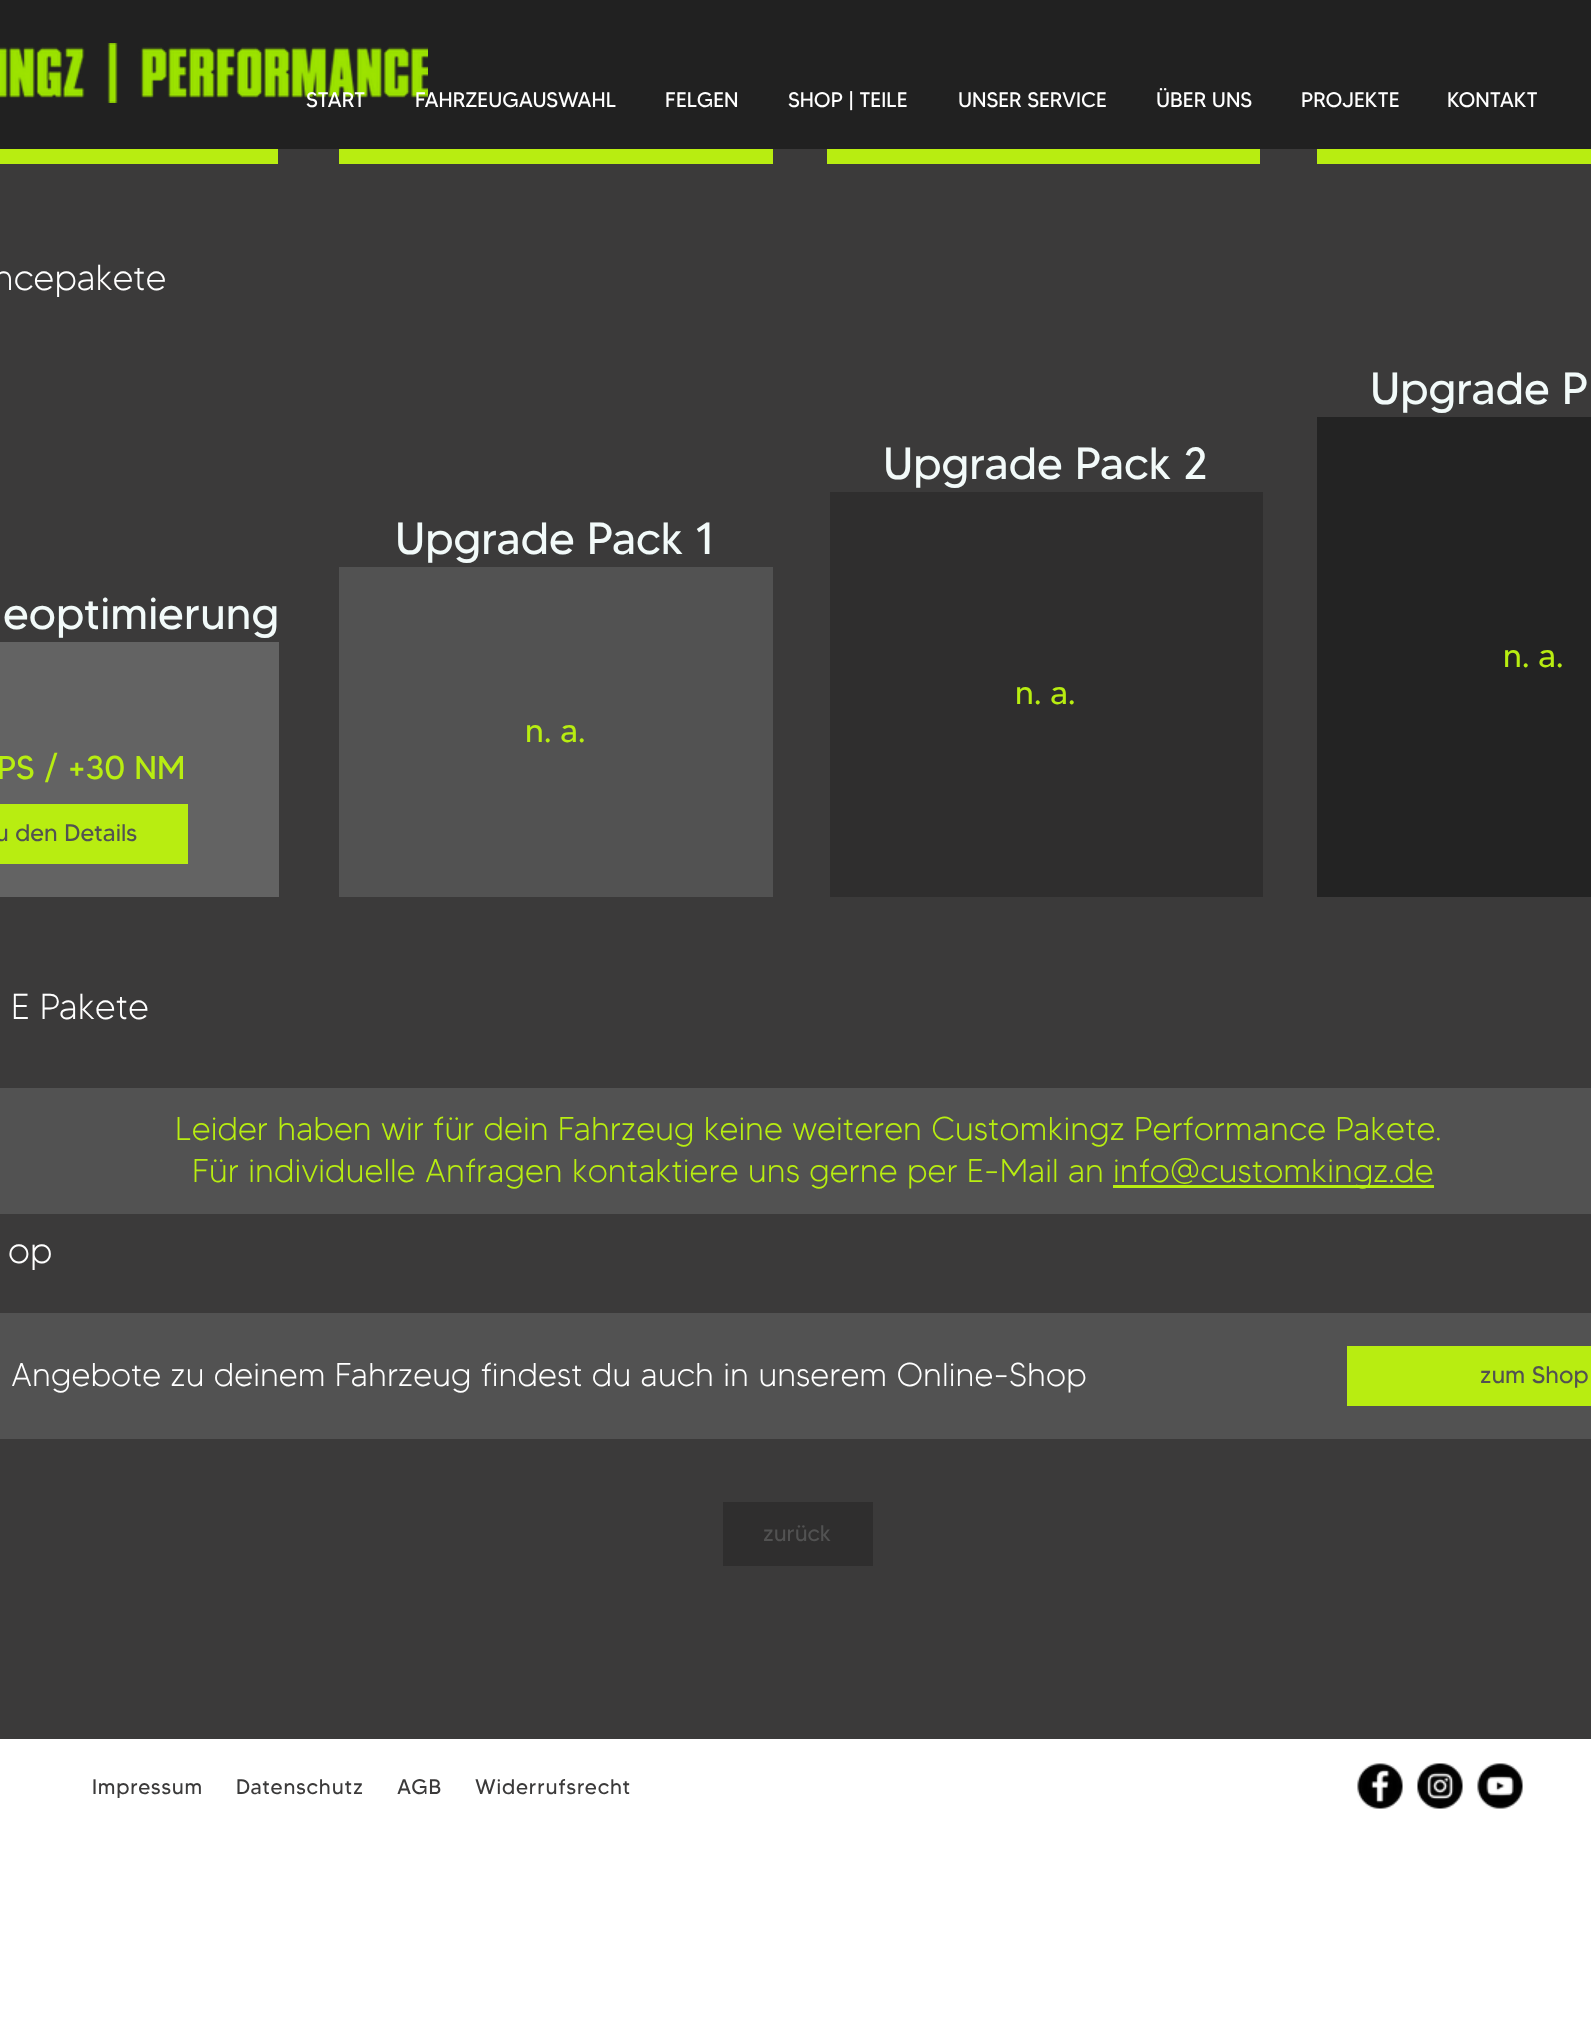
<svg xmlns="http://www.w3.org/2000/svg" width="1591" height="2038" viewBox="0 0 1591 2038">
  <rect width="100%" height="100%" fill="#3b3a3a"/>
  <rect x="0" y="0" width="1591" height="149" fill="#212121"/>
  <image x="0" y="43" width="428" height="60" href="img1.png"/>
  <text x="306" y="107" font-family="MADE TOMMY" font-size="21" fill="#ffffff">START</text>
  <text x="415" y="107" font-family="MADE TOMMY" font-size="21" fill="#ffffff">FAHRZEUGAUSWAHL</text>
  <text x="665" y="107" font-family="MADE TOMMY" font-size="21" fill="#ffffff">FELGEN</text>
  <text x="788" y="107" font-family="MADE TOMMY" font-size="21" fill="#ffffff">SHOP | TEILE</text>
  <text x="958" y="107" font-family="MADE TOMMY" font-size="21" fill="#ffffff">UNSER SERVICE</text>
  <text x="1156" y="107" font-family="MADE TOMMY" font-size="21" fill="#ffffff">ÜBER UNS</text>
  <text x="1301" y="107" font-family="MADE TOMMY" font-size="21" fill="#ffffff">PROJEKTE</text>
  <text x="1447" y="107" font-family="MADE TOMMY" font-size="21" fill="#ffffff">KONTAKT</text>
  <rect x="0" y="149" width="278" height="15" fill="#b8ed11"/>
  <rect x="339" y="149" width="434" height="15" fill="#b8ed11"/>
  <rect x="827" y="149" width="433" height="15" fill="#b8ed11"/>
  <rect x="1317" y="149" width="274" height="15" fill="#b8ed11"/>
  <text x="-7" y="290" font-family="MADE TOMMY" font-size="36" font-weight="300" fill="#ffffff">ncepakete</text>
  <text x="883" y="479" font-family="MADE TOMMY" font-size="45" fill="#f2faf9">Upgrade Pack 2</text>
  <text x="1370" y="404" font-family="MADE TOMMY" font-size="45" fill="#f2faf9">Upgrade P</text>
  <rect x="1317" y="417" width="274" height="480" fill="#232323"/>
  <text x="1503" y="667" font-family="MADE TOMMY" font-size="33" fill="#b8ed11">n. a.</text>
  <text x="3" y="629" font-family="MADE TOMMY" font-size="45" fill="#f2faf9">eoptimierung</text>
  <text x="395" y="554" font-family="MADE TOMMY" font-size="45" fill="#f2faf9">Upgrade Pack 1</text>
  <rect x="339" y="567" width="434" height="330" fill="#525252"/>
  <text x="525" y="742" font-family="MADE TOMMY" font-size="33" fill="#b8ed11">n. a.</text>
  <rect x="830" y="492" width="433" height="405" fill="#2f2e2e"/>
  <text x="1015" y="704" font-family="MADE TOMMY" font-size="33" fill="#b8ed11">n. a.</text>
  <rect x="0" y="642" width="279" height="255" fill="#636363"/>
  <text x="-3" y="779" font-family="MADE TOMMY" font-size="33" fill="#b8ed11">PS / +30 NM</text>
  <rect x="0" y="804" width="188" height="60" fill="#b8ed11"/>
  <text x="-5" y="841" font-family="MADE TOMMY" font-size="24" fill="#525252">u den Details</text>
  <text x="11" y="1019" font-family="MADE TOMMY" font-size="36" font-weight="300" fill="#ffffff">E Pakete</text>
  <rect x="0" y="1088" width="1591" height="126" fill="#525252"/>
  <text x="175" y="1140" font-family="MADE TOMMY" font-size="33" font-weight="300" fill="#b8ed11">Leider haben wir für dein Fahrzeug keine weiteren Customkingz Performance Pakete.</text>
  <text x="192" y="1182" font-family="MADE TOMMY" font-size="33" font-weight="300" fill="#b8ed11">Für individuelle Anfragen kontaktiere uns gerne per E-Mail an</text>
  <rect x="1113" y="1185" width="321" height="3" fill="#b8ed11"/>
  <text x="1113" y="1182" font-family="MADE TOMMY" font-size="33" font-weight="300" fill="#b8ed11">info@customkingz.de</text>
  <text x="8" y="1263" font-family="MADE TOMMY" font-size="36" font-weight="300" fill="#ffffff">op</text>
  <rect x="0" y="1313" width="1591" height="126" fill="#525252"/>
  <text x="11" y="1386" font-family="MADE TOMMY" font-size="33" font-weight="300" fill="#ffffff">Angebote zu deinem Fahrzeug findest du auch in unserem Online-Shop</text>
  <rect x="1347" y="1346" width="244" height="60" fill="#b8ed11"/>
  <text x="1480" y="1383" font-family="MADE TOMMY" font-size="24" fill="#525252">zum Shop</text>
  <rect x="723" y="1502" width="150" height="64" fill="#2f2e2e"/>
  <text x="763" y="1541" font-family="MADE TOMMY" font-size="22.5" fill="#525252">zurück</text>
  <rect x="0" y="1739" width="1591" height="299" fill="#ffffff"/>
  <text x="92" y="1794" font-family="MADE TOMMY" font-size="21" letter-spacing="0.8" fill="#3b3a3a">Impressum</text>
  <text x="236" y="1794" font-family="MADE TOMMY" font-size="21" letter-spacing="0.8" fill="#3b3a3a">Datenschutz</text>
  <text x="397" y="1794" font-family="MADE TOMMY" font-size="21" letter-spacing="0.8" fill="#3b3a3a">AGB</text>
  <text x="475" y="1794" font-family="MADE TOMMY" font-size="21" letter-spacing="0.8" fill="#3b3a3a">Widerrufsrecht</text>
  <image x="1357" y="1763" width="46" height="46" href="img2.png"/>
  <image x="1417" y="1763" width="46" height="46" href="img3.png"/>
  <image x="1477" y="1763" width="46" height="46" href="img4.png"/>
</svg>
